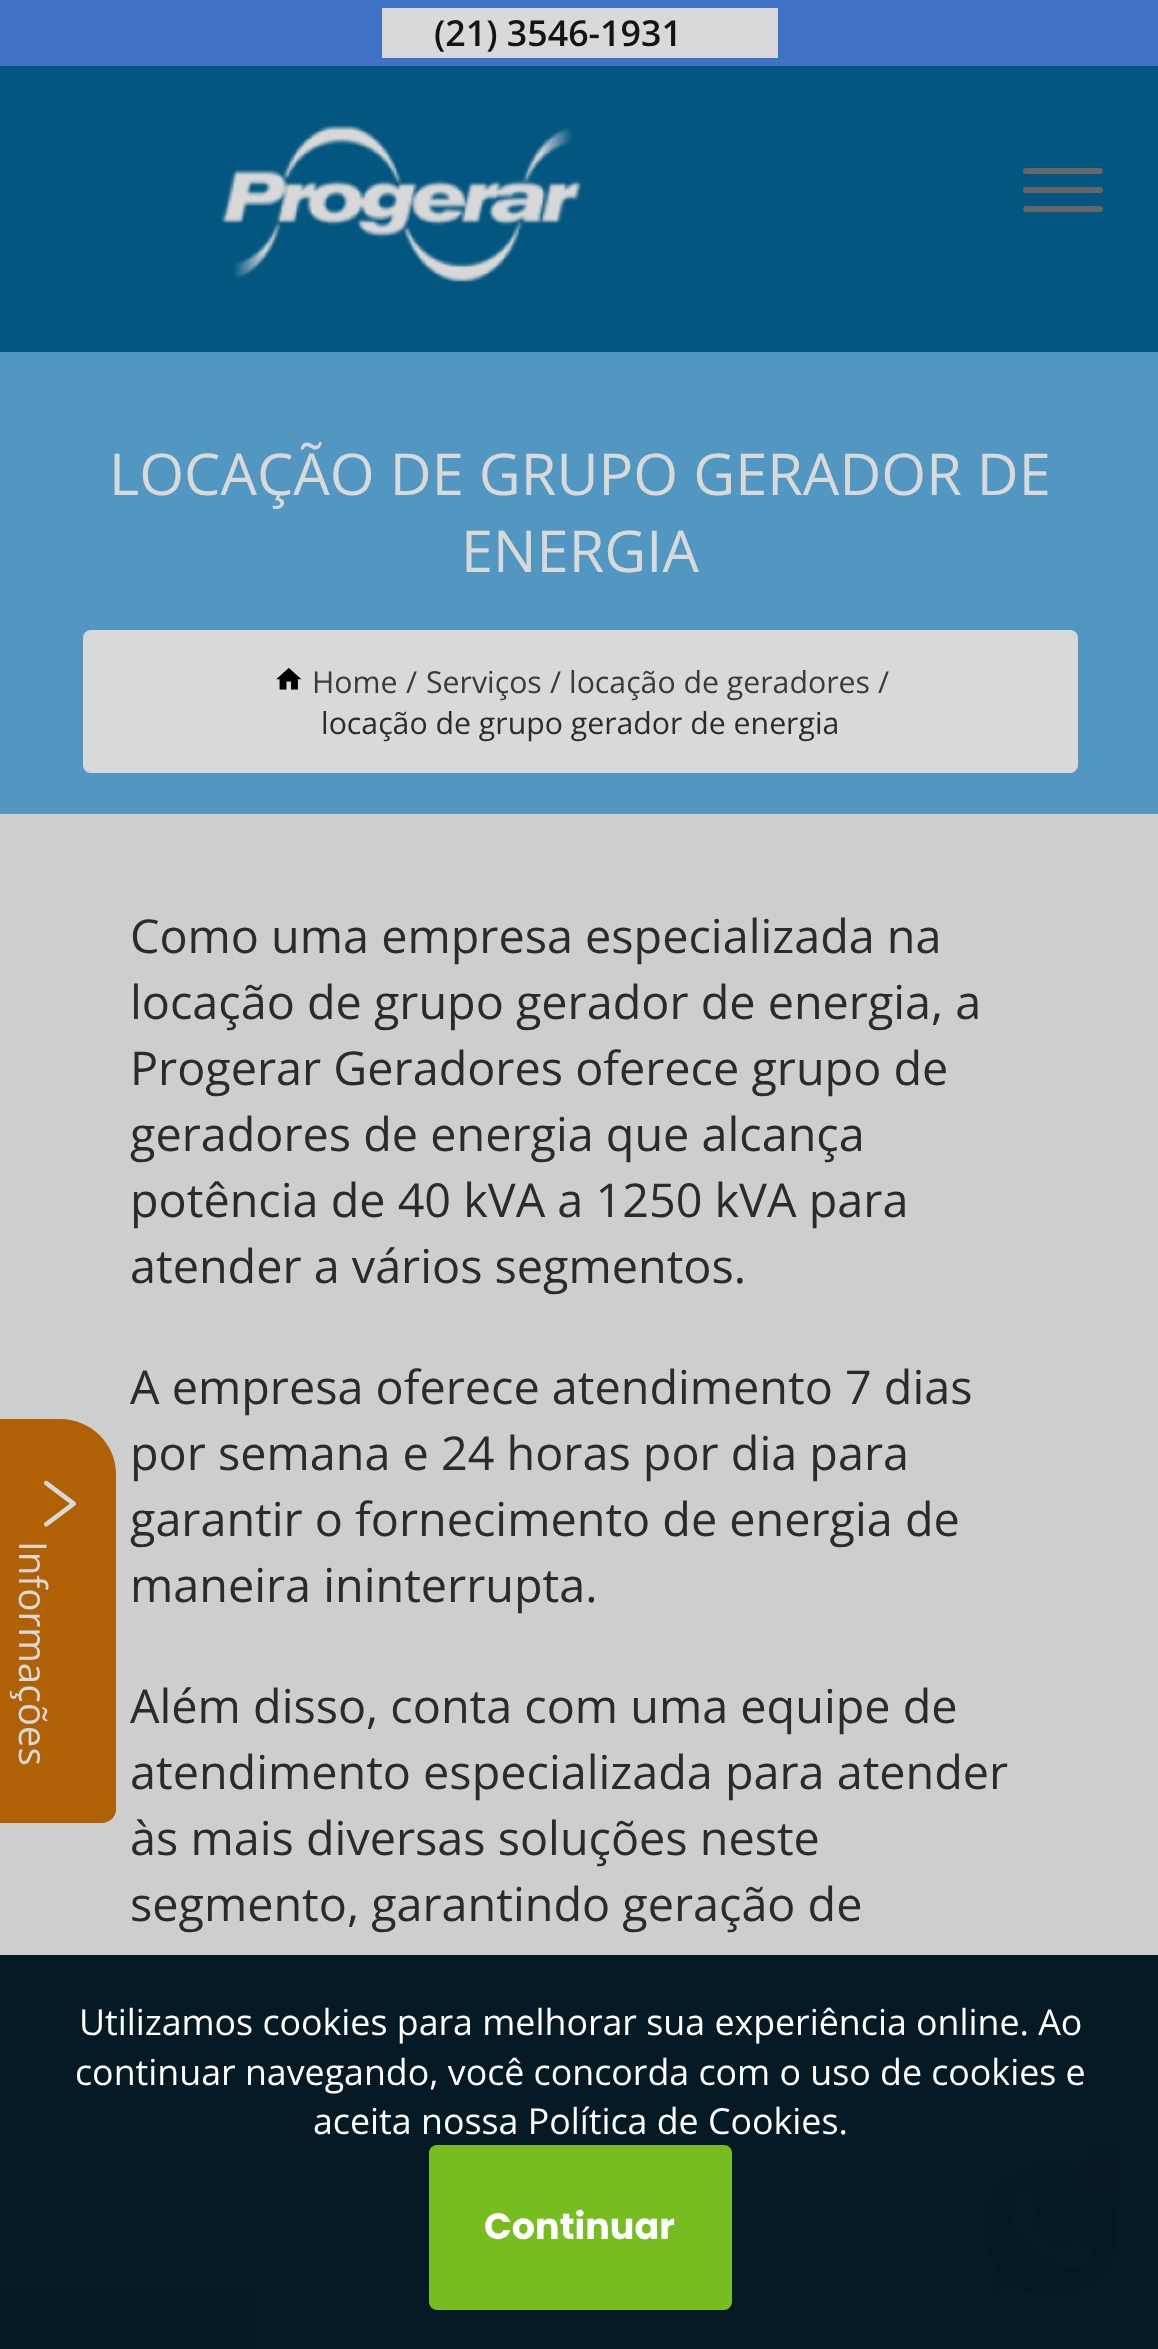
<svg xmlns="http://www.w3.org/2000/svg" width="1158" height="2349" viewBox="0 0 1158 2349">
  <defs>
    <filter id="blur1" x="-50%" y="-200%" width="200%" height="500%"><feGaussianBlur stdDeviation="33"/></filter>
  </defs>
  <rect width="100%" height="100%" fill="#ccced0"/>
  <rect x="0" y="66" width="1158" height="286" fill="#035680"/>
  <rect x="0" y="0" width="1158" height="66" fill="#3f72c5"/>
  <rect x="382" y="8" width="396" height="50" fill="#d9d9d9"/>
  <text x="434" y="46" font-family="Open Sans" font-size="35.75" font-weight="600" fill="#141414">(21) 3546-1931</text>
  <image x="220" y="125" width="362" height="157" href="img1.png"/>
  <rect x="1023" y="168" width="80" height="6" rx="3" fill="#666666"/>
  <rect x="1023" y="187" width="80" height="6" rx="3" fill="#666666"/>
  <rect x="1023" y="206" width="80" height="6" rx="3" fill="#666666"/>
  <rect x="-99" y="1436" width="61" height="341" fill="#717171" filter="url(#blur1)"/>
  <path d="M116 1474V1810C116 1817 109 1823 102 1823H-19V1419H60C91 1419 116 1444 116 1474Z" fill="#b06106"/>
  <image x="43" y="1480" width="33" height="47" href="img2.png"/>
  <text x="19" y="1541" transform="rotate(90 19 1541)" font-family="Open Sans" font-size="38.5" fill="#d9d9d9">Informações</text>
  <image x="968" y="2148" width="165" height="165" href="img3.png"/>
  <rect x="1086" y="2145" width="33" height="63" rx="16.5" fill="#bc0404"/>
  <rect x="0" y="352" width="1158" height="462" fill="#5297c1"/>
  <text x="109" y="495" font-family="Open Sans" font-size="57.75" fill="#d9d9d9">LOCAÇÃO DE GRUPO GERADOR DE</text>
  <text x="461" y="572" font-family="Open Sans" font-size="57.75" fill="#d9d9d9">ENERGIA</text>
  <rect x="83" y="630" width="995" height="143" rx="8" fill="#d9d9d9"/>
  <image x="276" y="668" width="26" height="22" href="img4.png"/>
  <text x="312" y="693" font-family="Open Sans" font-size="30.25" fill="#3a3a3a">Home</text>
  <text x="406" y="693" font-family="Open Sans" font-size="30.25" fill="#3a3a3a">/</text>
  <text x="426" y="693" font-family="Open Sans" font-size="30.25" fill="#3a3a3a">Serviços</text>
  <text x="550" y="693" font-family="Open Sans" font-size="30.25" fill="#3a3a3a">/</text>
  <text x="569" y="693" font-family="Open Sans" font-size="30.25" fill="#3a3a3a">locação de geradores</text>
  <text x="878" y="693" font-family="Open Sans" font-size="30.25" fill="#3a3a3a">/</text>
  <text x="321" y="734" font-family="Open Sans" font-size="30.25" fill="#2b2b2b">locação de grupo gerador de energia</text>
  <text x="130" y="953" font-family="Open Sans" font-size="46.75" fill="#2b2b2b">Como uma empresa especializada na</text>
  <text x="130" y="1019" font-family="Open Sans" font-size="46.75" fill="#2b2b2b">locação de grupo gerador de energia, a</text>
  <text x="130" y="1085" font-family="Open Sans" font-size="46.75" fill="#2b2b2b">Progerar Geradores oferece grupo de</text>
  <text x="130" y="1151" font-family="Open Sans" font-size="46.75" fill="#2b2b2b">geradores de energia que alcança</text>
  <text x="130" y="1217" font-family="Open Sans" font-size="46.75" fill="#2b2b2b">potência de 40 kVA a 1250 kVA para</text>
  <text x="130" y="1283" font-family="Open Sans" font-size="46.75" fill="#2b2b2b">atender a vários segmentos.</text>
  <text x="130" y="1404" font-family="Open Sans" font-size="46.75" fill="#2b2b2b">A empresa oferece atendimento 7 dias</text>
  <text x="130" y="1470" font-family="Open Sans" font-size="46.75" fill="#2b2b2b">por semana e 24 horas por dia para</text>
  <text x="130" y="1536" font-family="Open Sans" font-size="46.75" fill="#2b2b2b">garantir o fornecimento de energia de</text>
  <text x="130" y="1602" font-family="Open Sans" font-size="46.75" fill="#2b2b2b">maneira ininterrupta.</text>
  <text x="130" y="1723" font-family="Open Sans" font-size="46.75" fill="#2b2b2b">Além disso, conta com uma equipe de</text>
  <text x="130" y="1789" font-family="Open Sans" font-size="46.75" fill="#2b2b2b">atendimento especializada para atender</text>
  <text x="130" y="1855" font-family="Open Sans" font-size="46.75" fill="#2b2b2b">às mais diversas soluções neste</text>
  <text x="130" y="1921" font-family="Open Sans" font-size="46.75" fill="#2b2b2b">segmento, garantindo geração de</text>
  <rect x="0" y="1955" width="1158" height="394" fill="#021722" fill-opacity="0.99"/>
  <text x="79" y="2035" font-family="Open Sans" font-size="35.75" fill="#ffffff">Utilizamos cookies para melhorar sua experiência online. Ao</text>
  <text x="75" y="2085" font-family="Open Sans" font-size="35.75" fill="#ffffff">continuar navegando, você concorda com o uso de cookies e</text>
  <text x="313" y="2134" font-family="Open Sans" font-size="35.75" fill="#ffffff">aceita nossa Política de Cookies.</text>
  <rect x="429" y="2145" width="303" height="165" rx="8" fill="#77bd20"/>
  <text x="484" y="2239" font-family="Poppins" font-size="36.5" font-weight="bold" fill="#ffffff">Continuar</text>
</svg>
